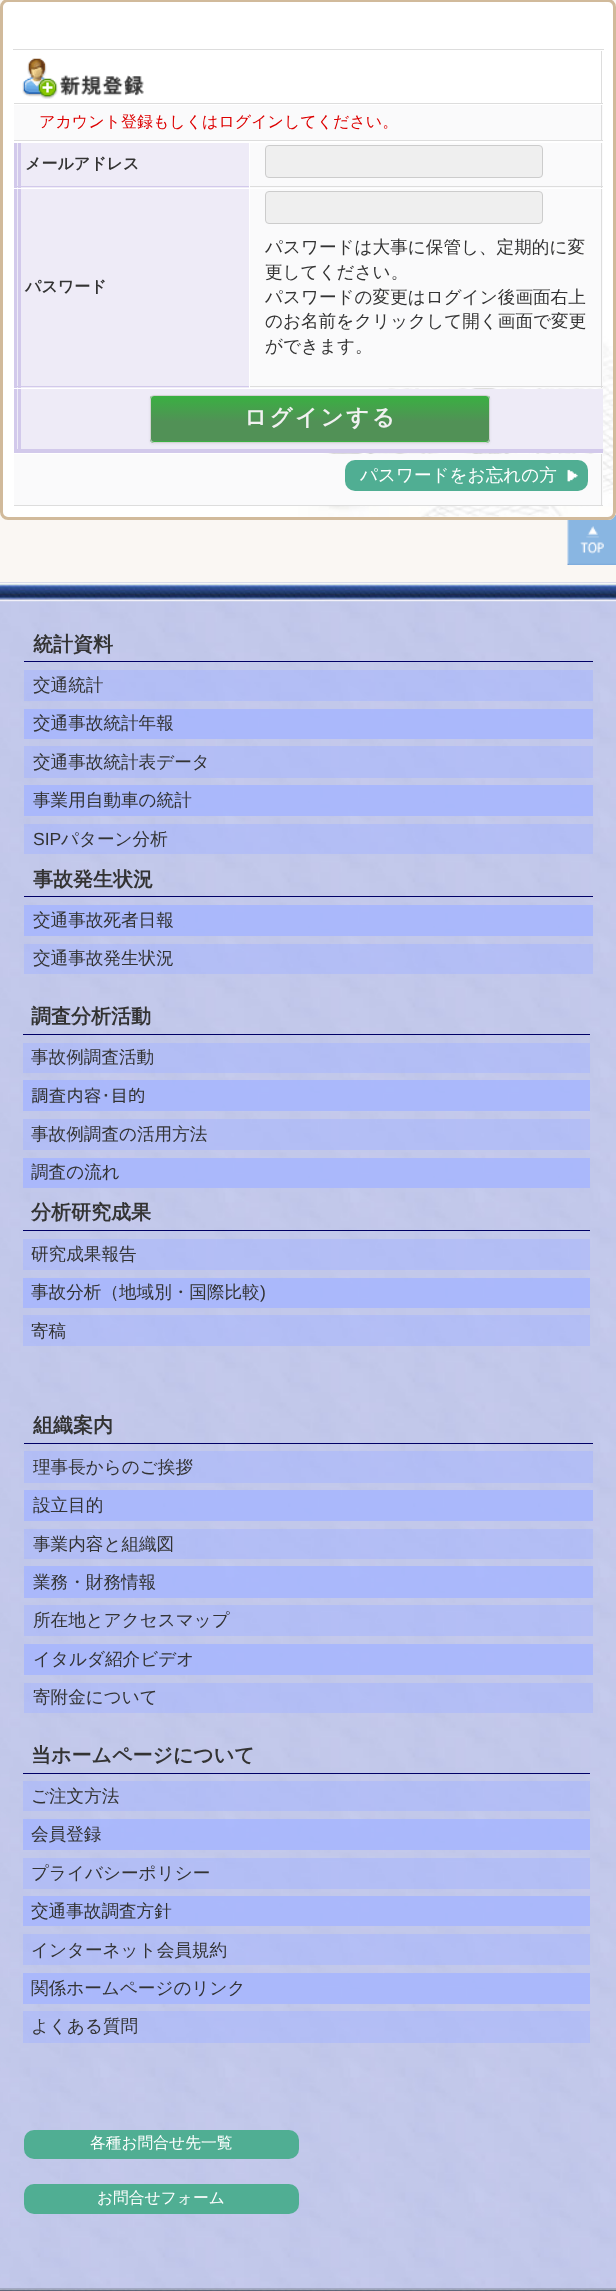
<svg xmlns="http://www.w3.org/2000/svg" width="616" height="2291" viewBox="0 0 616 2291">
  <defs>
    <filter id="blur1" x="-50%" y="-200%" width="200%" height="500%"><feGaussianBlur stdDeviation="1"/></filter>
    <clipPath id="clip1"><rect x="150" y="395" width="340" height="48" rx="4"/></clipPath>
    <linearGradient id="g1" gradientUnits="userSpaceOnUse" x1="320" y1="396" x2="320" y2="441"><stop offset="0" stop-color="#3ab042"/><stop offset="0.57" stop-color="#519156"/></linearGradient>
    <linearGradient id="g2" gradientUnits="userSpaceOnUse" x1="320" y1="441" x2="320" y2="486"><stop offset="0" stop-color="#3ab042"/><stop offset="0.57" stop-color="#519156"/></linearGradient>
  </defs>
  <rect width="100%" height="100%" fill="#faf7f3"/>
  <image x="567" y="515" width="49" height="50" href="img5.png"/>
  <rect x="0" y="-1" width="616" height="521" rx="8" fill="#ffffff"/>
  <image x="280" y="317" width="334" height="201" href="img1.png"/>
  <rect x="1.5" y="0.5" width="613" height="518" rx="6.5" fill="none" stroke="#d1ba9b" stroke-width="3"/>
  <rect x="13" y="49" width="591" height="1" fill="#dddddd"/>
  <rect x="601" y="51" width="1" height="53" fill="#dddddd"/>
  <rect x="14" y="103" width="589" height="1" fill="#dddddd"/>
  <image x="22" y="58" width="122" height="41" href="img2.png"/>
  <rect x="14" y="105" width="589" height="35" fill="#fafafb"/>
  <rect x="601" y="105" width="1" height="36" fill="#dddddd"/>
  <rect x="14" y="140" width="589" height="1" fill="#dddddd"/>
  <text x="39" y="127" font-family="WenQuanYi Zen Hei" font-size="16" font-weight="500" fill="#dd0000">アカウント登録もしくはログインしてください。</text>
  <rect x="17" y="143" width="232" height="45" fill="#eeebf7"/>
  <rect x="14" y="186" width="235" height="1" fill="#d2c9eb"/>
  <rect x="14" y="143" width="3" height="45" fill="#d2c9eb"/>
  <rect x="18" y="143" width="3" height="45" fill="#d2c9eb"/>
  <text x="25" y="169" font-family="WenQuanYi Zen Hei" font-size="16" font-weight="bold" fill="#333333">メールアドレス</text>
  <rect x="250" y="143" width="353" height="45" fill="#fafafb"/>
  <rect x="601" y="143" width="1" height="45" fill="#dddddd"/>
  <rect x="250" y="186" width="353" height="1" fill="#dddddd"/>
  <rect x="265.5" y="145.5" width="277" height="32" rx="3.5" fill="#efefef" stroke="#cccccc"/>
  <rect x="17" y="189" width="232" height="199" fill="#eeebf7"/>
  <rect x="14" y="386" width="235" height="1" fill="#d2c9eb"/>
  <rect x="14" y="189" width="3" height="199" fill="#d2c9eb"/>
  <rect x="18" y="189" width="3" height="199" fill="#d2c9eb"/>
  <text x="25" y="292" font-family="WenQuanYi Zen Hei" font-size="16" font-weight="bold" fill="#333333">パスワード</text>
  <rect x="250" y="189" width="353" height="199" fill="#fafafb"/>
  <rect x="601" y="189" width="1" height="199" fill="#dddddd"/>
  <rect x="250" y="386" width="353" height="1" fill="#dddddd"/>
  <rect x="265.5" y="191.5" width="277" height="32" rx="3.5" fill="#efefef" stroke="#cccccc"/>
  <text x="265" y="253" font-family="WenQuanYi Zen Hei" font-size="17.6" font-weight="500" fill="#333333">パスワードは大事に保管し、定期的に変</text>
  <text x="265" y="278" font-family="WenQuanYi Zen Hei" font-size="17.6" font-weight="500" fill="#333333">更してください。</text>
  <text x="265" y="303" font-family="WenQuanYi Zen Hei" font-size="17.6" font-weight="500" fill="#333333">パスワードの変更はログイン後画面右上</text>
  <text x="265" y="327" font-family="WenQuanYi Zen Hei" font-size="17.6" font-weight="500" fill="#333333">のお名前をクリックして開く画面で変更</text>
  <text x="265" y="352" font-family="WenQuanYi Zen Hei" font-size="17.6" font-weight="500" fill="#333333">ができます。</text>
  <rect x="17" y="389" width="586" height="60" fill="#eeebf7"/>
  <rect x="14" y="449" width="589" height="4" fill="#d2c9eb"/>
  <rect x="14" y="389" width="3" height="64" fill="#d2c9eb"/>
  <rect x="18" y="389" width="3" height="64" fill="#d2c9eb"/>
  <rect x="150" y="396" width="340" height="48" rx="4" fill="#404040" fill-opacity="0.1" filter="url(#blur1)"/>
  <g clip-path="url(#clip1)">
    <rect x="150" y="396" width="340" height="45" fill="url(#g1)"/>
    <rect x="150" y="441" width="340" height="2" fill="url(#g2)"/>
  </g>
  <rect x="150.5" y="395.5" width="339" height="47" rx="3.5" fill="none" stroke="#d2d2d2"/>
  <text x="244" y="425" font-family="WenQuanYi Zen Hei" font-size="22.5" font-weight="bold" letter-spacing="2.5" fill="#f1f1f1">ログインする</text>
  <rect x="14" y="454" width="589" height="51" fill="#fafafb"/>
  <rect x="601" y="454" width="1" height="52" fill="#dddddd"/>
  <rect x="14" y="505" width="589" height="1" fill="#dddddd"/>
  <rect x="345" y="460" width="243" height="31" rx="10" fill="#50ae93"/>
  <image x="567" y="469" width="11" height="13" href="img3.png"/>
  <text x="360" y="481" font-family="WenQuanYi Zen Hei" font-size="17.6" font-weight="500" fill="#ffffff">パスワードをお忘れの方</text>
  <image x="0" y="582" width="616" height="1707" href="img4.png"/>
  <rect x="24" y="661" width="569" height="1" fill="#000066"/>
  <text x="33" y="651" font-family="WenQuanYi Zen Hei" font-size="20" font-weight="bold" fill="#333333">統計資料</text>
  <rect x="24" y="670" width="569" height="31" fill="#a4b4ff" fill-opacity="0.5"/>
  <text x="33" y="691" font-family="WenQuanYi Zen Hei" font-size="17.6" font-weight="500" fill="#333333">交通統計</text>
  <rect x="24" y="709" width="569" height="30" fill="#a4b4ff" fill-opacity="0.8"/>
  <text x="33" y="729" font-family="WenQuanYi Zen Hei" font-size="17.6" font-weight="500" fill="#333333">交通事故統計年報</text>
  <rect x="24" y="746" width="569" height="32" fill="#a4b4ff" fill-opacity="0.5"/>
  <text x="33" y="768" font-family="WenQuanYi Zen Hei" font-size="17.6" font-weight="500" fill="#333333">交通事故統計表データ</text>
  <rect x="24" y="785" width="569" height="31" fill="#a4b4ff" fill-opacity="0.8"/>
  <text x="33" y="806" font-family="WenQuanYi Zen Hei" font-size="17.6" font-weight="500" fill="#333333">事業用自動車の統計</text>
  <rect x="24" y="824" width="569" height="30" fill="#a4b4ff" fill-opacity="0.5"/>
  <text x="33" y="845" font-family="Liberation Sans" font-size="17.6" fill="#333333">SIP</text>
  <text x="61" y="845" font-family="WenQuanYi Zen Hei" font-size="17.6" font-weight="500" fill="#333333">パターン分析</text>
  <rect x="24" y="896" width="569" height="1" fill="#000066"/>
  <text x="33" y="886" font-family="WenQuanYi Zen Hei" font-size="20" font-weight="bold" fill="#333333">事故発生状況</text>
  <rect x="24" y="905" width="569" height="31" fill="#a4b4ff" fill-opacity="0.8"/>
  <text x="33" y="926" font-family="WenQuanYi Zen Hei" font-size="17.6" font-weight="500" fill="#333333">交通事故死者日報</text>
  <rect x="24" y="944" width="569" height="30" fill="#a4b4ff" fill-opacity="0.5"/>
  <text x="33" y="964" font-family="WenQuanYi Zen Hei" font-size="17.6" font-weight="500" fill="#333333">交通事故発生状況</text>
  <rect x="23" y="1034" width="567" height="1" fill="#000066"/>
  <text x="31" y="1023" font-family="WenQuanYi Zen Hei" font-size="20" font-weight="bold" fill="#333333">調査分析活動</text>
  <rect x="23" y="1043" width="567" height="30" fill="#a4b4ff" fill-opacity="0.5"/>
  <text x="31" y="1063" font-family="WenQuanYi Zen Hei" font-size="17.6" font-weight="500" fill="#333333">事故例調査活動</text>
  <rect x="23" y="1080" width="567" height="31" fill="#a4b4ff" fill-opacity="0.8"/>
  <text x="31" y="1102" font-family="IPAGothic" font-size="17.6" fill="#333333">調査内容･目的</text>
  <rect x="23" y="1119" width="567" height="31" fill="#a4b4ff" fill-opacity="0.5"/>
  <text x="31" y="1140" font-family="WenQuanYi Zen Hei" font-size="17.6" font-weight="500" fill="#333333">事故例調査の活用方法</text>
  <rect x="23" y="1158" width="567" height="30" fill="#a4b4ff" fill-opacity="0.8"/>
  <text x="31" y="1178" font-family="WenQuanYi Zen Hei" font-size="17.6" font-weight="500" fill="#333333">調査の流れ</text>
  <rect x="23" y="1230" width="567" height="1" fill="#000066"/>
  <text x="31" y="1219" font-family="WenQuanYi Zen Hei" font-size="20" font-weight="bold" fill="#333333">分析研究成果</text>
  <rect x="23" y="1239" width="567" height="31" fill="#a4b4ff" fill-opacity="0.5"/>
  <text x="31" y="1260" font-family="WenQuanYi Zen Hei" font-size="17.6" font-weight="500" fill="#333333">研究成果報告</text>
  <rect x="23" y="1278" width="567" height="30" fill="#a4b4ff" fill-opacity="0.8"/>
  <text x="31" y="1298" font-family="WenQuanYi Zen Hei" font-size="17.6" font-weight="500" fill="#333333">事故分析（地域別・国際比較</text>
  <text x="260" y="1298" font-family="Liberation Sans" font-size="17.6" fill="#333333">)</text>
  <rect x="23" y="1315" width="567" height="31" fill="#a4b4ff" fill-opacity="0.5"/>
  <text x="31" y="1337" font-family="WenQuanYi Zen Hei" font-size="17.6" font-weight="500" fill="#333333">寄稿</text>
  <rect x="24" y="1443" width="569" height="1" fill="#000066"/>
  <text x="33" y="1432" font-family="WenQuanYi Zen Hei" font-size="20" font-weight="bold" fill="#333333">組織案内</text>
  <rect x="24" y="1451" width="569" height="32" fill="#a4b4ff" fill-opacity="0.5"/>
  <text x="33" y="1473" font-family="WenQuanYi Zen Hei" font-size="17.6" font-weight="500" fill="#333333">理事長からのご挨拶</text>
  <rect x="24" y="1490" width="569" height="31" fill="#a4b4ff" fill-opacity="0.8"/>
  <text x="33" y="1511" font-family="WenQuanYi Zen Hei" font-size="17.6" font-weight="500" fill="#333333">設立目的</text>
  <rect x="24" y="1529" width="569" height="30" fill="#a4b4ff" fill-opacity="0.5"/>
  <text x="33" y="1550" font-family="WenQuanYi Zen Hei" font-size="17.6" font-weight="500" fill="#333333">事業内容と組織図</text>
  <rect x="24" y="1566" width="569" height="32" fill="#a4b4ff" fill-opacity="0.8"/>
  <text x="33" y="1588" font-family="WenQuanYi Zen Hei" font-size="17.6" font-weight="500" fill="#333333">業務・財務情報</text>
  <rect x="24" y="1605" width="569" height="31" fill="#a4b4ff" fill-opacity="0.5"/>
  <text x="33" y="1626" font-family="WenQuanYi Zen Hei" font-size="17.6" font-weight="500" fill="#333333">所在地とアクセスマップ</text>
  <rect x="24" y="1644" width="569" height="31" fill="#a4b4ff" fill-opacity="0.8"/>
  <text x="33" y="1665" font-family="WenQuanYi Zen Hei" font-size="17.6" font-weight="500" fill="#333333">イタルダ紹介ビデオ</text>
  <rect x="24" y="1683" width="569" height="30" fill="#a4b4ff" fill-opacity="0.5"/>
  <text x="33" y="1703" font-family="WenQuanYi Zen Hei" font-size="17.6" font-weight="500" fill="#333333">寄附金について</text>
  <rect x="23" y="1773" width="567" height="1" fill="#000066"/>
  <text x="31" y="1762" font-family="WenQuanYi Zen Hei" font-size="20" font-weight="bold" fill="#333333">当ホームページについて</text>
  <rect x="23" y="1781" width="567" height="30" fill="#a4b4ff" fill-opacity="0.5"/>
  <text x="31" y="1802" font-family="WenQuanYi Zen Hei" font-size="17.6" font-weight="500" fill="#333333">ご注文方法</text>
  <rect x="23" y="1819" width="567" height="31" fill="#a4b4ff" fill-opacity="0.8"/>
  <text x="31" y="1840" font-family="WenQuanYi Zen Hei" font-size="17.6" font-weight="500" fill="#333333">会員登録</text>
  <rect x="23" y="1858" width="567" height="31" fill="#a4b4ff" fill-opacity="0.5"/>
  <text x="31" y="1879" font-family="WenQuanYi Zen Hei" font-size="17.6" font-weight="500" fill="#333333">プライバシーポリシー</text>
  <rect x="23" y="1896" width="567" height="30" fill="#a4b4ff" fill-opacity="0.8"/>
  <text x="31" y="1917" font-family="WenQuanYi Zen Hei" font-size="17.6" font-weight="500" fill="#333333">交通事故調査方針</text>
  <rect x="23" y="1934" width="567" height="31" fill="#a4b4ff" fill-opacity="0.5"/>
  <text x="31" y="1956" font-family="WenQuanYi Zen Hei" font-size="17.6" font-weight="500" fill="#333333">インターネット会員規約</text>
  <rect x="23" y="1973" width="567" height="31" fill="#a4b4ff" fill-opacity="0.8"/>
  <text x="31" y="1994" font-family="WenQuanYi Zen Hei" font-size="17.6" font-weight="500" fill="#333333">関係ホームページのリンク</text>
  <rect x="23" y="2011" width="567" height="32" fill="#a4b4ff" fill-opacity="0.5"/>
  <text x="31" y="2032" font-family="WenQuanYi Zen Hei" font-size="17.6" font-weight="500" fill="#333333">よくある質問</text>
  <rect x="24" y="2130" width="275" height="29" rx="10" fill="#50ae93"/>
  <text x="90" y="2148" font-family="WenQuanYi Zen Hei" font-size="15.75" font-weight="500" fill="#ffffff">各種お問合せ先一覧</text>
  <rect x="24" y="2184" width="275" height="30" rx="10" fill="#50ae93"/>
  <text x="97" y="2203" font-family="WenQuanYi Zen Hei" font-size="15.75" font-weight="500" fill="#ffffff">お問合せフォーム</text>
  <image x="0" y="2288" width="616" height="3" href="img6.png"/>
</svg>
